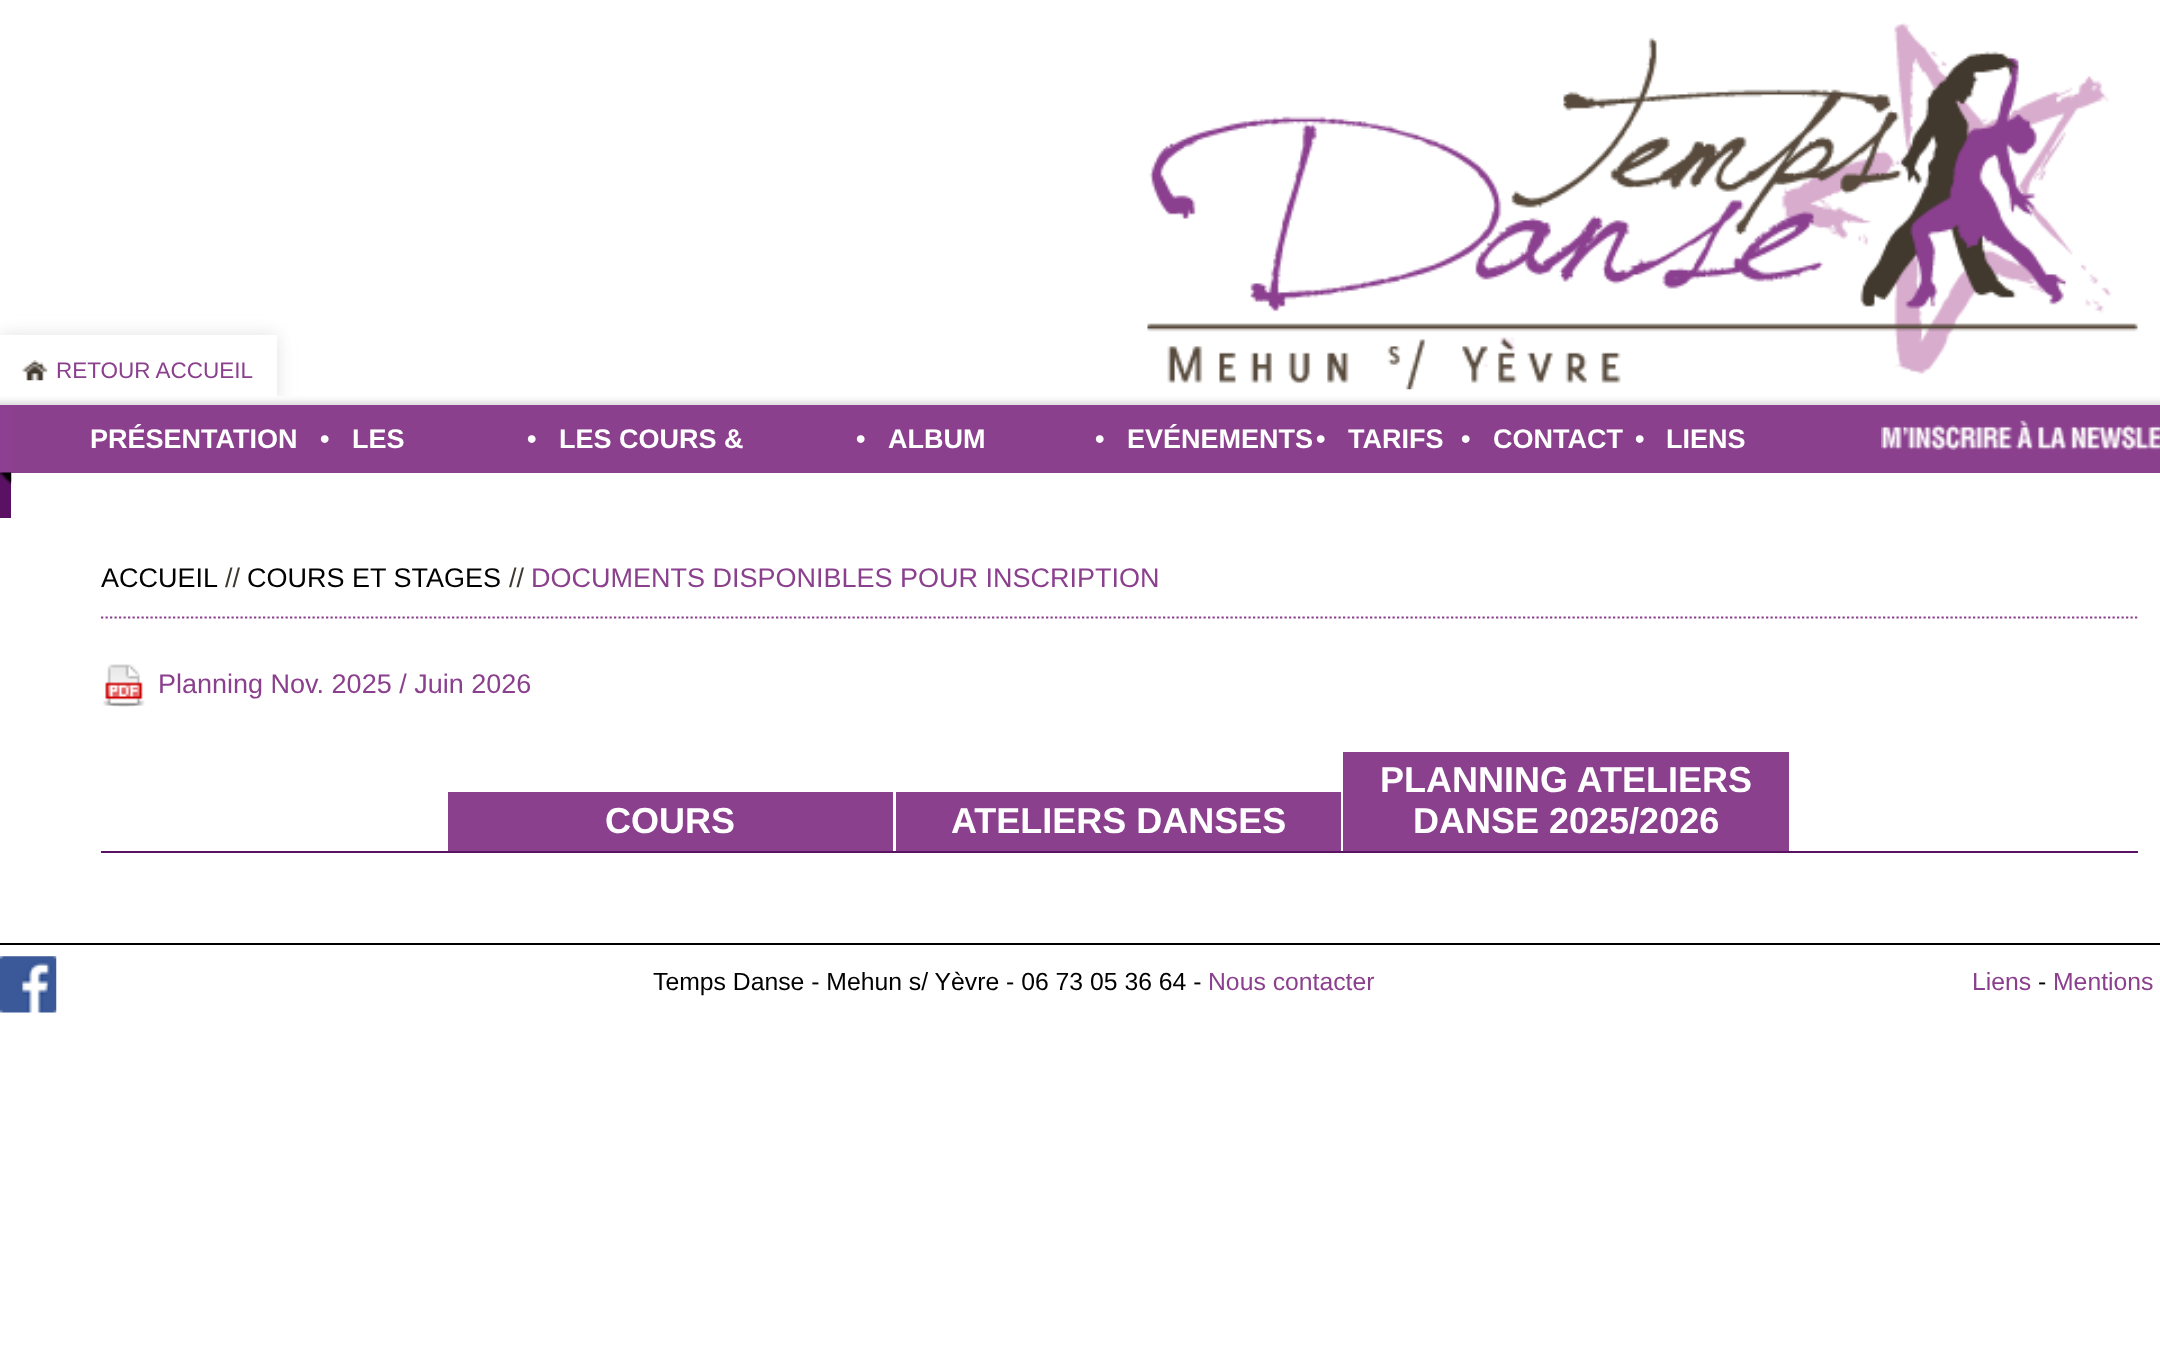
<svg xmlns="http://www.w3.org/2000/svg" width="2160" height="1350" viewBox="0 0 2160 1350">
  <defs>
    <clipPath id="clip1"><path d="M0 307H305V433H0ZM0 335H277V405H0Z" clip-rule="evenodd"/></clipPath>
    <filter id="blur1" x="-50%" y="-200%" width="200%" height="500%"><feGaussianBlur stdDeviation="9"/></filter>
  </defs>
  <rect width="100%" height="100%" fill="#ffffff"/>
  <rect x="0" y="472" width="11" height="46" fill="#5b1163"/>
  <g clip-path="url(#clip1)">
    <rect x="0" y="335" width="277" height="70" fill="#e1e1e1" filter="url(#blur1)"/>
  </g>
  <image x="22" y="360" width="26" height="21" href="img1.png"/>
  <text x="56" y="378" font-family="Liberation Sans" font-size="22.5" fill="#8b408e">RETOUR ACCUEIL</text>
  <image x="1147" y="22" width="991" height="368" href="img2.png"/>
  <image x="0" y="396" width="2160" height="9" href="img3.png"/>
  <image x="0" y="405" width="12" height="79" href="img4.png"/>
  <rect x="11" y="405" width="2149" height="68" fill="#8b408e"/>
  <text x="90" y="448" font-family="Liberation Sans" font-size="27" font-weight="bold" fill="#ffffff">PRÉSENTATION</text>
  <text x="320" y="448" font-family="Liberation Sans" font-size="27" font-weight="bold" fill="#ffffff">•</text>
  <text x="352" y="448" font-family="Liberation Sans" font-size="27" font-weight="bold" fill="#ffffff">LES</text>
  <text x="527" y="448" font-family="Liberation Sans" font-size="27" font-weight="bold" fill="#ffffff">•</text>
  <text x="559" y="448" font-family="Liberation Sans" font-size="27" font-weight="bold" fill="#ffffff">LES COURS &amp;</text>
  <text x="856" y="448" font-family="Liberation Sans" font-size="27" font-weight="bold" fill="#ffffff">•</text>
  <text x="888" y="448" font-family="Liberation Sans" font-size="27" font-weight="bold" fill="#ffffff">ALBUM</text>
  <text x="1095" y="448" font-family="Liberation Sans" font-size="27" font-weight="bold" fill="#ffffff">•</text>
  <text x="1127" y="448" font-family="Liberation Sans" font-size="27" font-weight="bold" fill="#ffffff">EVÉNEMENTS</text>
  <text x="1316" y="448" font-family="Liberation Sans" font-size="27" font-weight="bold" fill="#ffffff">•</text>
  <text x="1348" y="448" font-family="Liberation Sans" font-size="27" font-weight="bold" fill="#ffffff">TARIFS</text>
  <text x="1461" y="448" font-family="Liberation Sans" font-size="27" font-weight="bold" fill="#ffffff">•</text>
  <text x="1493" y="448" font-family="Liberation Sans" font-size="27" font-weight="bold" fill="#ffffff">CONTACT</text>
  <text x="1635" y="448" font-family="Liberation Sans" font-size="27" font-weight="bold" fill="#ffffff">•</text>
  <text x="1666" y="448" font-family="Liberation Sans" font-size="27" font-weight="bold" fill="#ffffff">LIENS</text>
  <image x="1881" y="420" width="279" height="30" href="img5.png"/>
  <path d="M101 617.5H2137.5" fill="none" stroke="#8b408e" stroke-width="2.2" stroke-dasharray="2.25 2.25"/>
  <text x="101" y="587" font-family="Liberation Sans" font-size="27" fill="#000000">ACCUEIL</text>
  <text x="225" y="587" font-family="Liberation Sans" font-size="27" fill="#40382e">//</text>
  <text x="247" y="587" font-family="Liberation Sans" font-size="27" fill="#000000">COURS ET STAGES</text>
  <text x="509" y="587" font-family="Liberation Sans" font-size="27" fill="#40382e">//</text>
  <text x="531" y="587" font-family="Liberation Sans" font-size="27" fill="#8b408e">DOCUMENTS DISPONIBLES POUR INSCRIPTION</text>
  <image x="103" y="664" width="42" height="43" href="img6.png"/>
  <text x="158" y="693" font-family="Liberation Sans" font-size="27" fill="#8b408e">Planning Nov. 2025 / Juin 2026</text>
  <rect x="101" y="851" width="2037" height="2" fill="#591361"/>
  <rect x="448" y="792" width="445" height="59" fill="#8b408e"/>
  <text x="605" y="833" font-family="Liberation Sans" font-size="36" font-weight="bold" fill="#ffffff">COURS</text>
  <rect x="896" y="792" width="445" height="59" fill="#8b408e"/>
  <text x="951" y="833" font-family="Liberation Sans" font-size="36" font-weight="bold" fill="#ffffff">ATELIERS DANSES</text>
  <rect x="1343" y="752" width="446" height="99" fill="#8b408e"/>
  <text x="1380" y="792" font-family="Liberation Sans" font-size="36" font-weight="bold" fill="#ffffff">PLANNING ATELIERS</text>
  <text x="1413" y="833" font-family="Liberation Sans" font-size="36" font-weight="bold" fill="#ffffff">DANSE 2025/2026</text>
  <rect x="0" y="943" width="2160" height="2" fill="#000000"/>
  <image x="0" y="956" width="57" height="57" href="img7.png"/>
  <text x="653" y="990" font-family="Liberation Sans" font-size="24.75" fill="#000000">Temps Danse - Mehun s/ Yèvre - 06 73 05 36 64 -</text>
  <text x="1208" y="990" font-family="Liberation Sans" font-size="24.75" fill="#8b408e">Nous contacter</text>
  <text x="1972" y="990" font-family="Liberation Sans" font-size="24.75" fill="#8b408e">Liens</text>
  <text x="2038" y="990" font-family="Liberation Sans" font-size="24.75" fill="#000000">-</text>
  <text x="2053" y="990" font-family="Liberation Sans" font-size="24.75" fill="#8b408e">Mentions</text>
</svg>
